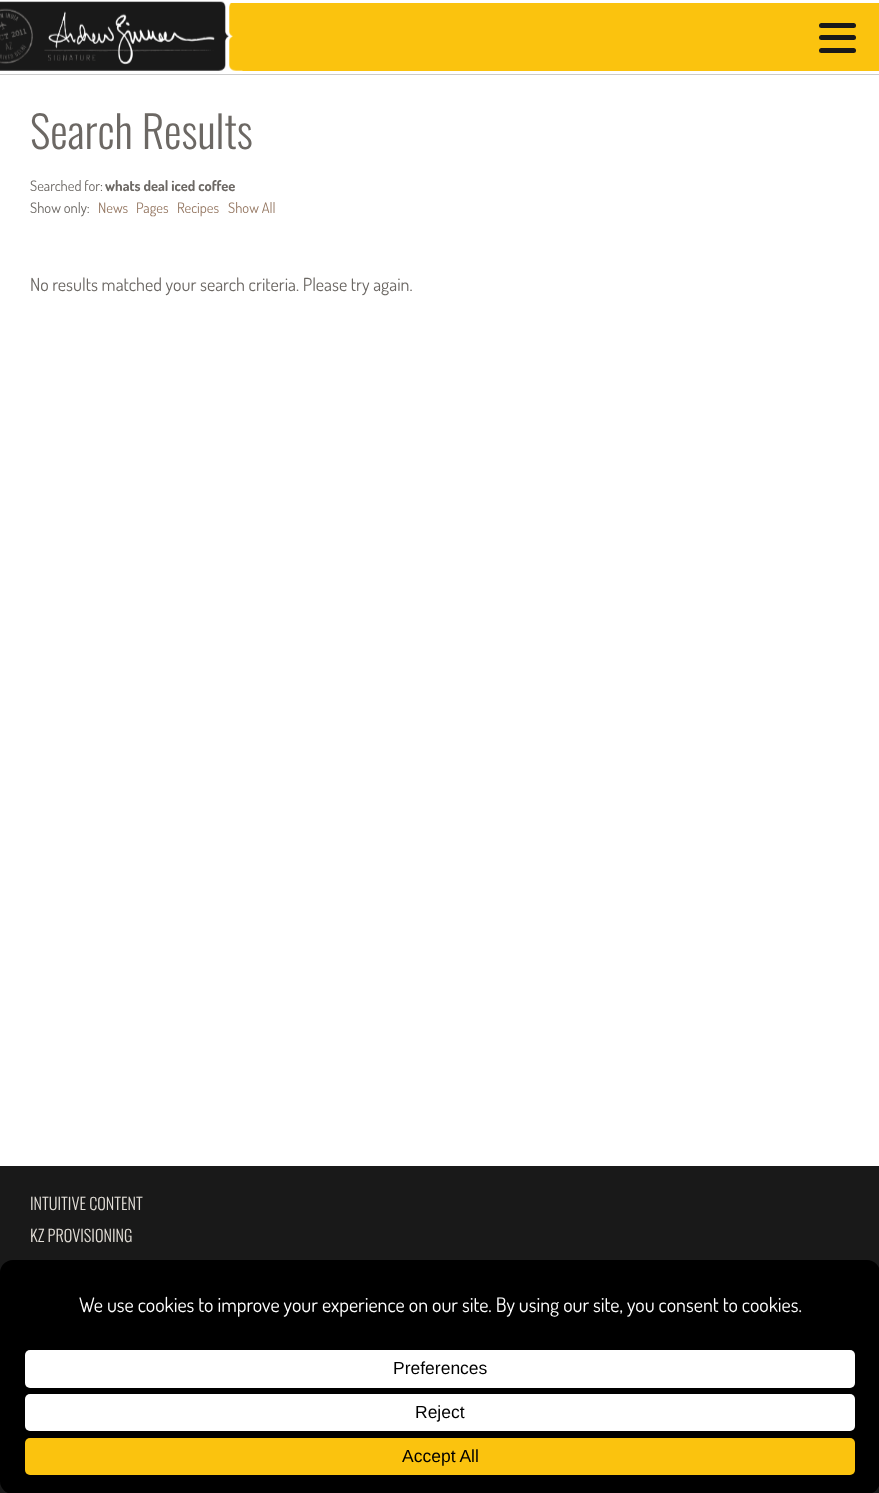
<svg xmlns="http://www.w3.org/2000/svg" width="879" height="1493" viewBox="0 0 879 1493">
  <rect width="100%" height="100%" fill="#ffffff"/>
  <rect x="229" y="3" width="650" height="68" fill="#fbc30e"/>
  <rect x="0" y="74" width="879" height="1" fill="#cccccc"/>
  <image x="0" y="1" width="243" height="70" href="img1.png"/>
  <rect x="819" y="48" width="37" height="5" rx="2.5" fill="#191919"/>
  <rect x="819" y="23" width="37" height="5" rx="2.5" fill="#191919"/>
  <rect x="819" y="35" width="37" height="5" rx="2.5" fill="#191919"/>
  <text x="30" y="149" font-family="Oswald" font-size="44" font-weight="300" fill="#6c6864">Search Results</text>
  <text x="30" y="191" font-family="Dosis" font-size="14.5" fill="#6c6864">Searched for:</text>
  <text x="105" y="191" font-family="Dosis" font-size="14.5" font-weight="bold" fill="#6c6864">whats deal iced coffee</text>
  <text x="30" y="213" font-family="Dosis" font-size="14.5" fill="#6c6864">Show only:</text>
  <text x="98" y="213" font-family="Dosis" font-size="14.5" fill="#967964">News</text>
  <text x="136" y="213" font-family="Dosis" font-size="14.5" fill="#967964">Pages</text>
  <text x="177" y="213" font-family="Dosis" font-size="14.5" fill="#967964">Recipes</text>
  <text x="228" y="213" font-family="Dosis" font-size="14.5" fill="#967964">Show All</text>
  <text x="30" y="291" font-family="Dosis" font-size="18" fill="#6c6864">No results matched your search criteria. Please try again.</text>
  <rect x="0" y="1166" width="879" height="327" fill="#191919"/>
  <text x="30" y="1210" font-family="Oswald" font-size="16.25" font-weight="300" fill="#e3dfd8">INTUITIVE CONTENT</text>
  <text x="30" y="1242" font-family="Oswald" font-size="16.25" font-weight="300" fill="#e3dfd8">KZ PROVISIONING</text>
  <rect x="0" y="1260" width="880" height="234" rx="13" fill="#000000"/>
  <text x="79" y="1312" font-family="Dosis" font-size="20" fill="#ffffff">We use cookies to improve your experience on our site. By using our site, you consent to cookies.</text>
  <rect x="25" y="1350" width="830" height="38" rx="5" fill="#ffffff"/>
  <text x="393" y="1374" font-family="Liberation Sans" font-size="17.5" fill="#000000">Preferences</text>
  <rect x="25" y="1394" width="830" height="37" rx="5" fill="#ffffff"/>
  <text x="415" y="1418" font-family="Liberation Sans" font-size="17.5" fill="#000000">Reject</text>
  <rect x="25" y="1438" width="830" height="37" rx="5" fill="#fbc30e"/>
  <text x="402" y="1462" font-family="Liberation Sans" font-size="17.5" fill="#000000">Accept All</text>
</svg>
